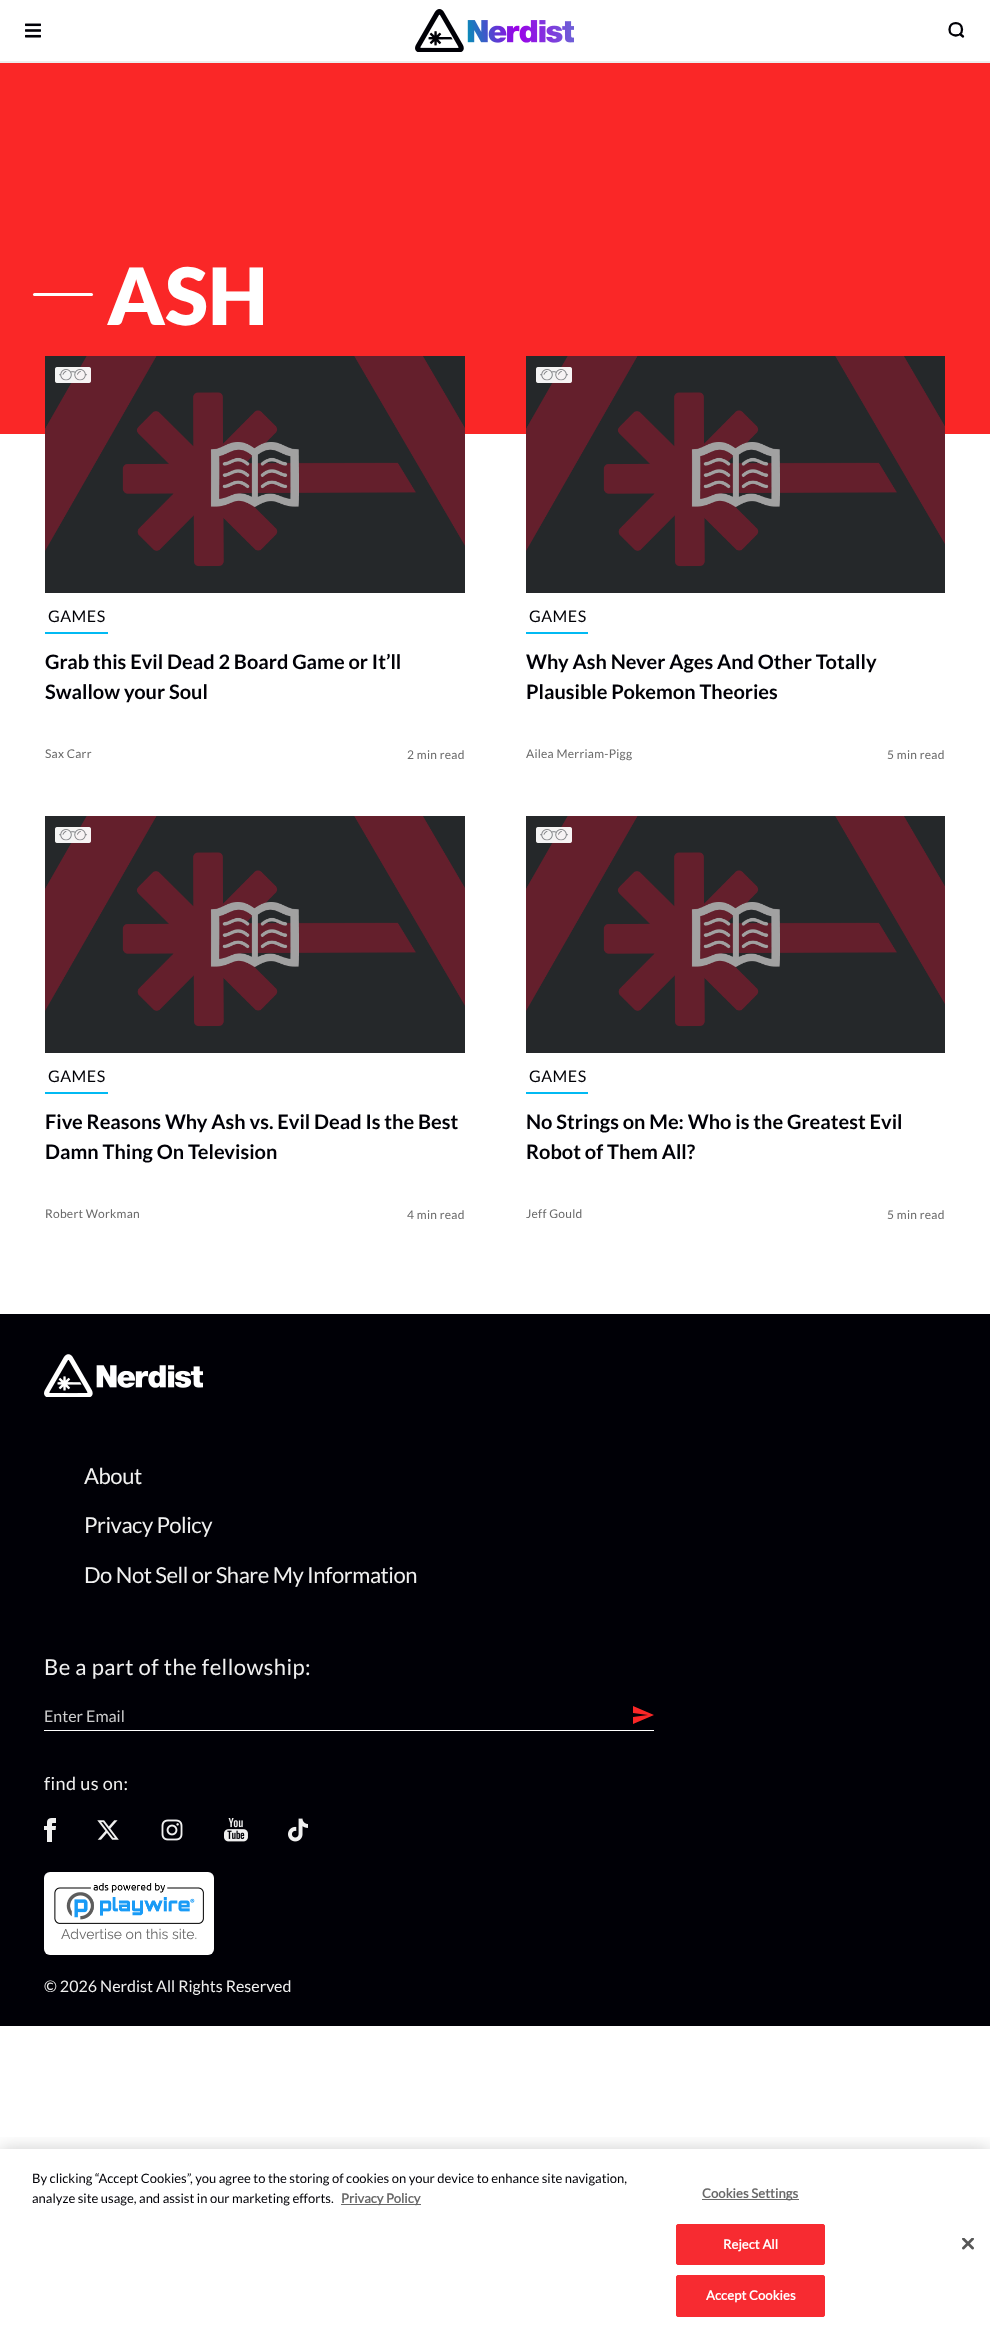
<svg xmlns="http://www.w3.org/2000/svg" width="990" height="2337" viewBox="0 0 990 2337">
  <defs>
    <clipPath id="clip1"><rect x="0" y="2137" width="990" height="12"/></clipPath>
    <filter id="blur1" x="-50%" y="-200%" width="200%" height="500%"><feGaussianBlur stdDeviation="9"/></filter>
  </defs>
  <rect width="100%" height="100%" fill="#ffffff"/>
  <rect x="0" y="61" width="990" height="2" fill="#eeeeee"/>
  <image x="25" y="23" width="16" height="15" href="img1.png"/>
  <image x="415" y="9" width="159" height="43" href="img2.png"/>
  <path d="M962 29.5C962 37.5 949.5 37.5 949.5 29.5C949.5 21 962 21 962 29.5ZM963 36.5L960 34" fill="none" stroke="#000006" stroke-width="2.3" stroke-linecap="round" stroke-linejoin="round"/>
  <rect x="0" y="63" width="990" height="371" fill="#fa2727"/>
  <rect x="33" y="293" width="60" height="3" rx="1.5" fill="#ffffff"/>
  <text x="107" y="325" font-family="Lato" font-size="79" font-weight="900" fill="#ffffff">ASH</text>
  <image x="45" y="356" width="420" height="237" href="img3.png"/>
  <image x="55" y="367" width="36" height="16" href="img4.png"/>
  <rect x="45" y="632" width="63" height="2" fill="#01baf3"/>
  <text x="48" y="622" font-family="Lato" font-size="16" letter-spacing="0.5" fill="#000006">GAMES</text>
  <text x="45" y="669" font-family="Lato" font-size="20" font-weight="bold" fill="#000006">Grab this Evil Dead 2 Board Game or It’ll</text>
  <text x="45" y="699" font-family="Lato" font-size="20" font-weight="bold" fill="#000006">Swallow your Soul</text>
  <text x="45" y="758" font-family="Lato" font-size="12" letter-spacing="0.25" fill="#696969">Sax Carr</text>
  <text x="407" y="759" font-family="Lato" font-size="12" letter-spacing="0.25" fill="#696969">2 min read</text>
  <image x="526" y="356" width="419" height="237" href="img5.png"/>
  <image x="536" y="367" width="36" height="16" href="img4.png"/>
  <rect x="526" y="632" width="62" height="2" fill="#01baf3"/>
  <text x="529" y="622" font-family="Lato" font-size="16" letter-spacing="0.5" fill="#000006">GAMES</text>
  <text x="526" y="669" font-family="Lato" font-size="20" font-weight="bold" fill="#000006">Why Ash Never Ages And Other Totally</text>
  <text x="526" y="699" font-family="Lato" font-size="20" font-weight="bold" fill="#000006">Plausible Pokemon Theories</text>
  <text x="526" y="758" font-family="Lato" font-size="12" letter-spacing="0.25" fill="#696969">Ailea Merriam-Pigg</text>
  <text x="887" y="759" font-family="Lato" font-size="12" letter-spacing="0.25" fill="#696969">5 min read</text>
  <image x="45" y="816" width="420" height="237" href="img3.png"/>
  <image x="55" y="827" width="36" height="16" href="img4.png"/>
  <rect x="45" y="1092" width="63" height="2" fill="#01baf3"/>
  <text x="48" y="1082" font-family="Lato" font-size="16" letter-spacing="0.5" fill="#000006">GAMES</text>
  <text x="45" y="1129" font-family="Lato" font-size="20" font-weight="bold" fill="#000006">Five Reasons Why Ash vs. Evil Dead Is the Best</text>
  <text x="45" y="1159" font-family="Lato" font-size="20" font-weight="bold" fill="#000006">Damn Thing On Television</text>
  <text x="45" y="1218" font-family="Lato" font-size="12" letter-spacing="0.25" fill="#696969">Robert Workman</text>
  <text x="407" y="1219" font-family="Lato" font-size="12" letter-spacing="0.25" fill="#696969">4 min read</text>
  <image x="526" y="816" width="419" height="237" href="img5.png"/>
  <image x="536" y="827" width="36" height="16" href="img4.png"/>
  <rect x="526" y="1092" width="62" height="2" fill="#01baf3"/>
  <text x="529" y="1082" font-family="Lato" font-size="16" letter-spacing="0.5" fill="#000006">GAMES</text>
  <text x="526" y="1129" font-family="Lato" font-size="20" font-weight="bold" fill="#000006">No Strings on Me: Who is the Greatest Evil</text>
  <text x="526" y="1159" font-family="Lato" font-size="20" font-weight="bold" fill="#000006">Robot of Them All?</text>
  <text x="526" y="1218" font-family="Lato" font-size="12" letter-spacing="0.25" fill="#696969">Jeff Gould</text>
  <text x="887" y="1219" font-family="Lato" font-size="12" letter-spacing="0.25" fill="#696969">5 min read</text>
  <rect x="0" y="1314" width="990" height="712" fill="#000006"/>
  <image x="44" y="1354" width="159" height="43" href="img6.png"/>
  <text x="84" y="1484" font-family="Lato" font-size="22" letter-spacing="-0.45" fill="#f0f0f0">About</text>
  <text x="84" y="1533" font-family="Lato" font-size="22" letter-spacing="-0.45" fill="#f0f0f0">Privacy Policy</text>
  <text x="84" y="1583" font-family="Lato" font-size="22" letter-spacing="-0.45" fill="#f0f0f0">Do Not Sell or Share My Information</text>
  <text x="44" y="1675" font-family="Lato" font-size="22" letter-spacing="0.45" fill="#f0f0f0">Be a part of the fellowship:</text>
  <rect x="44" y="1730" width="610" height="1" fill="#ffffff"/>
  <text x="44" y="1722" font-family="Lato" font-size="16" fill="#cccccd">Enter Email</text>
  <path d="M633 1724L654 1715L633 1706V1713L648 1715L633 1717Z" fill="#fa2727"/>
  <text x="44" y="1790" font-family="Lato" font-size="18" letter-spacing="0.4" fill="#f0f0f0">find us on:</text>
  <image x="44" y="1818" width="12" height="24" href="img7.png"/>
  <image x="97" y="1820" width="22" height="20" href="img8.png"/>
  <image x="161" y="1819" width="22" height="22" href="img9.png"/>
  <image x="224" y="1818" width="24" height="24" href="img10.png"/>
  <image x="288" y="1818" width="20" height="24" href="img11.png"/>
  <rect x="44" y="1872" width="170" height="83" rx="6" fill="#ffffff"/>
  <image x="54" y="1883" width="150" height="41" href="img12.png"/>
  <text x="61" y="1939" font-family="Raleway" font-size="14" fill="#696969">Advertise on this site.</text>
  <text x="44" y="1992" font-family="Lato" font-size="16" fill="#f0f0f0">© 2026 Nerdist All Rights Reserved</text>
  <g clip-path="url(#clip1)">
    <rect x="0" y="2149" width="990" height="188" fill="#000000" fill-opacity="0.2" filter="url(#blur1)"/>
  </g>
  <text x="32" y="2183" font-family="Lato" font-size="13" fill="#000006">By clicking “Accept Cookies”, you agree to the storing of cookies on your device to enhance site navigation,</text>
  <text x="32" y="2203" font-family="Lato" font-size="13" fill="#000006">analyze site usage, and assist in our marketing efforts.</text>
  <rect x="341" y="2204" width="80" height="1" fill="#696969"/>
  <text x="341" y="2203" font-family="'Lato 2'" font-size="13" font-weight="bold" fill="#696969">Privacy Policy</text>
  <rect x="702" y="2199" width="97" height="1" fill="#696969"/>
  <text x="702" y="2198" font-family="'Lato 2'" font-size="13" font-weight="bold" letter-spacing="0.1" fill="#696969">Cookies Settings</text>
  <rect x="676.5" y="2224.5" width="148" height="40" rx="1.5" fill="#f72b31" stroke="#f72b31"/>
  <text x="723" y="2249" font-family="'Lato 2'" font-size="13" font-weight="bold" letter-spacing="0.1" fill="#ffffff">Reject All</text>
  <rect x="676.5" y="2275.5" width="148" height="41" rx="1.5" fill="#f72b31" stroke="#f72b31"/>
  <text x="706" y="2300" font-family="'Lato 2'" font-size="13" font-weight="bold" letter-spacing="0.1" fill="#ffffff">Accept Cookies</text>
  <image x="962" y="2238" width="12" height="12" href="img13.png"/>
</svg>
